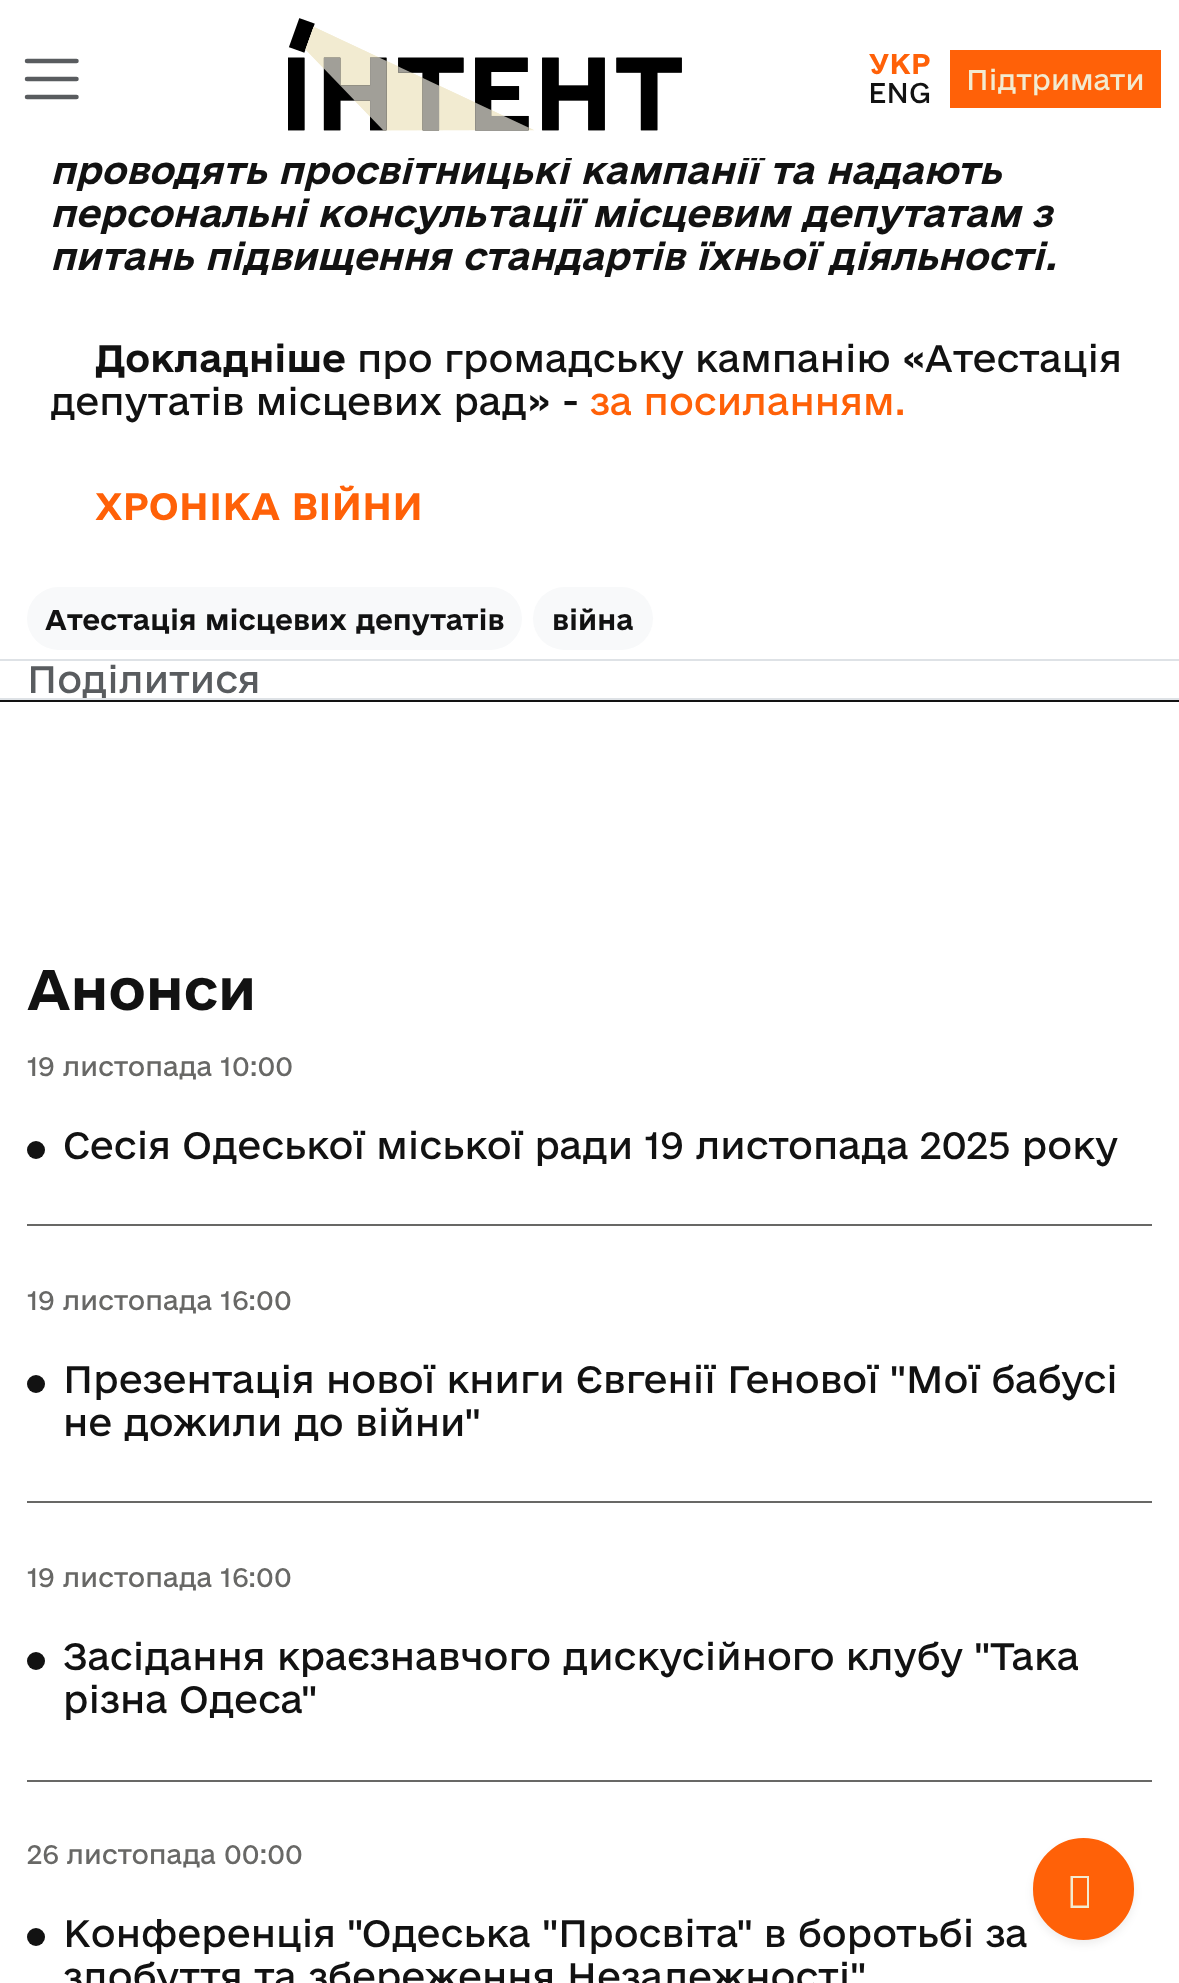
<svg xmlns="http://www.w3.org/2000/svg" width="1179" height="1983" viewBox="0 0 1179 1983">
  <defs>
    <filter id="blur1" x="-50%" y="-200%" width="200%" height="500%"><feGaussianBlur stdDeviation="4.5"/></filter>
  </defs>
  <rect width="100%" height="100%" fill="#ffffff"/>
  <text x="50" y="184" font-family="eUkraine" font-size="36" font-weight="bold" font-style="italic" fill="#121212">проводять просвітницькі кампанії та надають</text>
  <rect x="408" y="155" width="358" height="3" fill="#ffffff"/>
  <path d="M27 61H76.5M27 79H76.5M27 97H76.5" fill="none" stroke="#595c5f" stroke-width="4.5" stroke-linecap="round"/>
  <image x="288" y="18" width="394" height="113" href="img1.png"/>
  <text x="869" y="74" font-family="eUkraine" font-size="27" font-weight="bold" fill="#ff6108">УКР</text>
  <text x="868" y="103" font-family="eUkraine" font-size="27" fill="#121212">ENG</text>
  <rect x="950" y="50" width="211" height="58" fill="#ff6108"/>
  <text x="966" y="90" font-family="eUkraine" font-size="27" fill="#f2ebd1">Підтримати</text>
  <rect x="0" y="700" width="1179" height="2" fill="#121212"/>
  <text x="50" y="227" font-family="eUkraine" font-size="36" font-weight="bold" font-style="italic" fill="#121212">персональні консультації місцевим депутатам з</text>
  <text x="50" y="270" font-family="eUkraine" font-size="36" font-weight="bold" font-style="italic" fill="#121212">питань підвищення стандартів їхньої діяльності.</text>
  <text x="95" y="372" font-family="eUkraine" font-size="36" font-weight="bold" fill="#121212">Докладніше</text>
  <text x="357" y="372" font-family="eUkraine" font-size="36" fill="#121212">про громадську кампанію «Атестація</text>
  <text x="50" y="415" font-family="eUkraine" font-size="36" fill="#121212">депутатів місцевих рад» -</text>
  <text x="590" y="415" font-family="eUkraine" font-size="36" fill="#ff6108">за посиланням.</text>
  <text x="95" y="520" font-family="eUkraine" font-size="36" font-weight="bold" fill="#ff6108">ХРОНІКА ВІЙНИ</text>
  <rect x="27" y="587" width="495" height="63" rx="31.5" fill="#f8f9fa"/>
  <text x="45" y="630" font-family="eUkraine" font-size="27" font-weight="bold" fill="#121212">Атестація місцевих депутатів</text>
  <rect x="533" y="587" width="120" height="63" rx="31.5" fill="#f8f9fa"/>
  <text x="552" y="630" font-family="eUkraine" font-size="27" font-weight="bold" fill="#121212">війна</text>
  <rect x="0" y="659" width="1179" height="2" fill="#dee2e6"/>
  <rect x="0" y="698" width="1179" height="2" fill="#dee2e6"/>
  <text x="27" y="693" font-family="eUkraine" font-size="36" fill="#595c5f">Поділитися</text>
  <text x="27" y="1010" font-family="eUkraine" font-size="54" font-weight="bold" fill="#121212">Анонси</text>
  <rect x="27" y="1224" width="1125" height="2" fill="#686866"/>
  <text x="27" y="1076" font-family="eUkraine" font-size="25.25" fill="#686866">19 листопада 10:00</text>
  <circle cx="36" cy="1150" r="9" fill="#121212"/>
  <text x="63" y="1159" font-family="eUkraine" font-size="36" fill="#121212">Сесія Одеської міської ради 19 листопада 2025 року</text>
  <rect x="27" y="1501" width="1125" height="2" fill="#686866"/>
  <text x="27" y="1310" font-family="eUkraine" font-size="25.25" fill="#686866">19 листопада 16:00</text>
  <circle cx="36" cy="1384" r="9" fill="#121212"/>
  <text x="63" y="1393" font-family="eUkraine" font-size="36" fill="#121212">Презентація нової книги Євгенії Генової "Мої бабусі</text>
  <text x="63" y="1436" font-family="eUkraine" font-size="36" fill="#121212">не дожили до війни"</text>
  <rect x="27" y="1780" width="1125" height="2" fill="#686866"/>
  <text x="27" y="1587" font-family="eUkraine" font-size="25.25" fill="#686866">19 листопада 16:00</text>
  <circle cx="36" cy="1661" r="9" fill="#121212"/>
  <text x="63" y="1670" font-family="eUkraine" font-size="36" fill="#121212">Засідання краєзнавчого дискусійного клубу "Така</text>
  <text x="63" y="1713" font-family="eUkraine" font-size="36" fill="#121212">різна Одеса"</text>
  <text x="27" y="1864" font-family="eUkraine" font-size="25.25" fill="#686866">26 листопада 00:00</text>
  <circle cx="36" cy="1937" r="9" fill="#121212"/>
  <text x="63" y="1947" font-family="eUkraine" font-size="36" fill="#121212">Конференція "Одеська "Просвіта" в боротьбі за</text>
  <text x="63" y="1990" font-family="eUkraine" font-size="36" fill="#121212">здобуття та збереження Незалежності"</text>
  <rect x="1033" y="1843" width="101" height="101" rx="50.5" fill="#000000" fill-opacity="0.07" filter="url(#blur1)"/>
  <rect x="1034" y="1839" width="99" height="100" rx="49.5" fill="#ff6108" stroke="#ff6108" stroke-width="2"/>
  <path d="M1070.5 1908V1876H1089V1908ZM1073 1905.5H1087V1878H1073Z" fill="#f2ebd1"/>
</svg>
